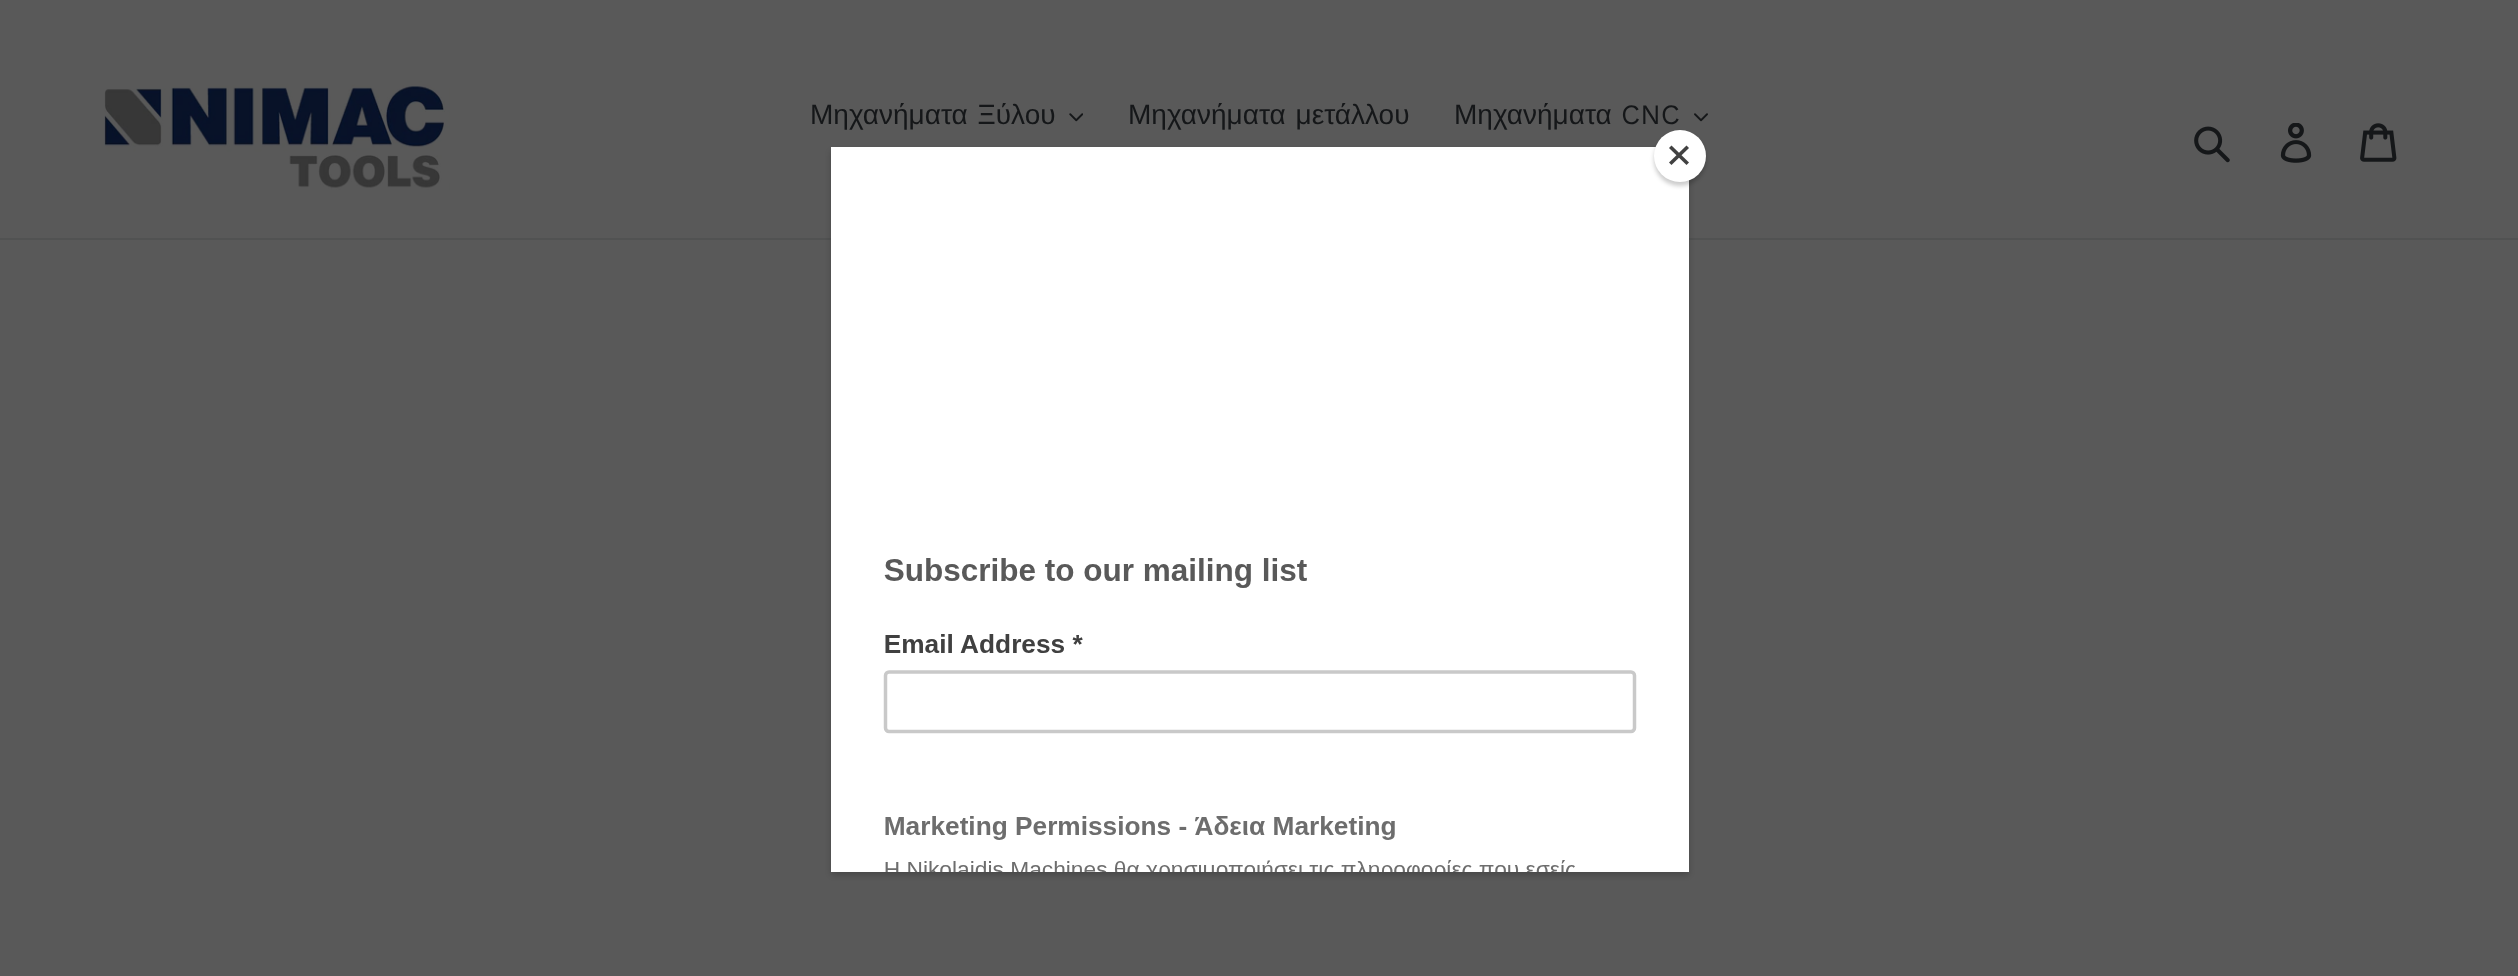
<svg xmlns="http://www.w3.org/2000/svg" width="2518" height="976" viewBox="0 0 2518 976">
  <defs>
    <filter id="blur1" x="-50%" y="-200%" width="200%" height="500%"><feGaussianBlur stdDeviation="3.5"/></filter>
    <filter id="blur2" x="-50%" y="-200%" width="200%" height="500%"><feGaussianBlur stdDeviation="2"/></filter>
  </defs>
  <rect width="100%" height="100%" fill="#595959"/>
  <rect x="0" y="238" width="2518" height="2" fill="#515252"/>
  <image x="104" y="81" width="346" height="109" href="img1.png"/>
  <text x="810" y="124" word-spacing="2" font-family="Liberation Sans" font-size="28" fill="#151719">Μηχανήματα Ξύλου</text>
  <image x="1069" y="113" width="14" height="9" href="img2.png"/>
  <text x="1128" y="124" word-spacing="2" font-family="Liberation Sans" font-size="28" fill="#151719">Μηχανήματα μετάλλου</text>
  <text x="1454" y="124" font-family="Liberation Sans" font-size="28" fill="#151719">Μηχανήματα</text>
  <text x="1621" y="124" font-family="Work Sans" font-size="28" fill="#151719">CNC</text>
  <image x="1694" y="113" width="14" height="9" href="img3.png"/>
  <image x="2194" y="126" width="36" height="37" href="img4.png"/>
  <image x="2280" y="123" width="32" height="40" href="img5.png"/>
  <image x="2360" y="123" width="37" height="39" href="img6.png"/>
  <rect x="831" y="151" width="858" height="724" fill="#000000" fill-opacity="0.2" filter="url(#blur1)"/>
  <image x="831" y="147" width="858" height="725" href="img7.png"/>
  <rect x="1654" y="133" width="52" height="53" rx="26" fill="#000000" fill-opacity="0.2" filter="url(#blur2)"/>
  <circle cx="1680" cy="156" r="26" fill="#ffffff"/>
  <path d="M1686.5 145.5L1689 148L1671.5 165L1669 162.5Z" fill="#414141"/>
  <path d="M1669 148L1671.5 145.5L1689 162.5L1686.5 165Z" fill="#414141"/>
</svg>
